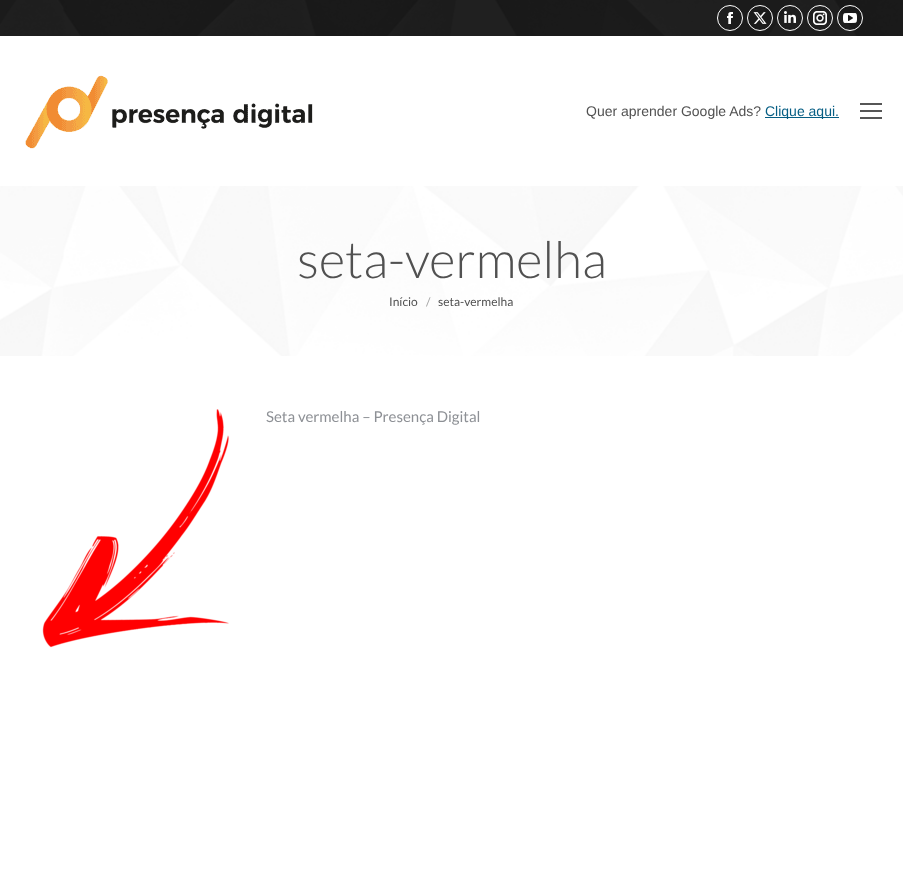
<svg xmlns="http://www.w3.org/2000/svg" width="903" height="872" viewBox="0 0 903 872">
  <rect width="100%" height="100%" fill="#ffffff"/>
  <rect x="0" y="0" width="903" height="36" fill="#000000"/>
  <image x="0" y="0" width="903" height="36" href="img1.png"/>
  <circle cx="730" cy="18" r="12.5" fill="none" stroke="#ffffff"/>
  <image x="727" y="12" width="6" height="12" href="img2.png"/>
  <circle cx="760" cy="18" r="12.5" fill="none" stroke="#ffffff"/>
  <image x="753" y="12" width="14" height="12" href="img3.png"/>
  <circle cx="790" cy="18" r="12.5" fill="none" stroke="#ffffff"/>
  <image x="784" y="11" width="12" height="12" href="img4.png"/>
  <circle cx="820" cy="18" r="12.5" fill="none" stroke="#ffffff"/>
  <image x="813" y="11" width="14" height="14" href="img5.png"/>
  <circle cx="850" cy="18" r="12.5" fill="none" stroke="#ffffff"/>
  <image x="843" y="13" width="14" height="10" href="img6.png"/>
  <image x="25" y="75" width="288" height="74" href="img7.png"/>
  <text x="586" y="116" font-family="Liberation Sans" font-size="14" fill="#515151">Quer aprender Google Ads?</text>
  <rect x="765" y="117" width="74" height="1" fill="#065e84"/>
  <text x="765" y="116" font-family="Liberation Sans" font-size="14" fill="#065e84">Clique aqui.</text>
  <rect x="860" y="103" width="22" height="2" fill="#565656"/>
  <rect x="860" y="110" width="22" height="2" fill="#565656"/>
  <rect x="860" y="117" width="22" height="2" fill="#565656"/>
  <image x="0" y="186" width="903" height="170" href="img8.png"/>
  <text x="297" y="278" font-family="Lato" font-size="51" font-weight="300" fill="#515151">seta-vermelha</text>
  <text x="389" y="306" font-family="Lato" font-size="12" fill="#515151">Início</text>
  <text x="426" y="306" font-family="Lato" font-size="12" fill="#a7a7a7">/</text>
  <text x="438" y="306" font-family="Lato" font-size="12" fill="#515151">seta-vermelha</text>
  <image x="42" y="409" width="187" height="239" href="img9.png"/>
  <text x="266" y="422" font-family="Lato" font-size="15" fill="#8d9095">Seta vermelha – Presença Digital</text>
</svg>
